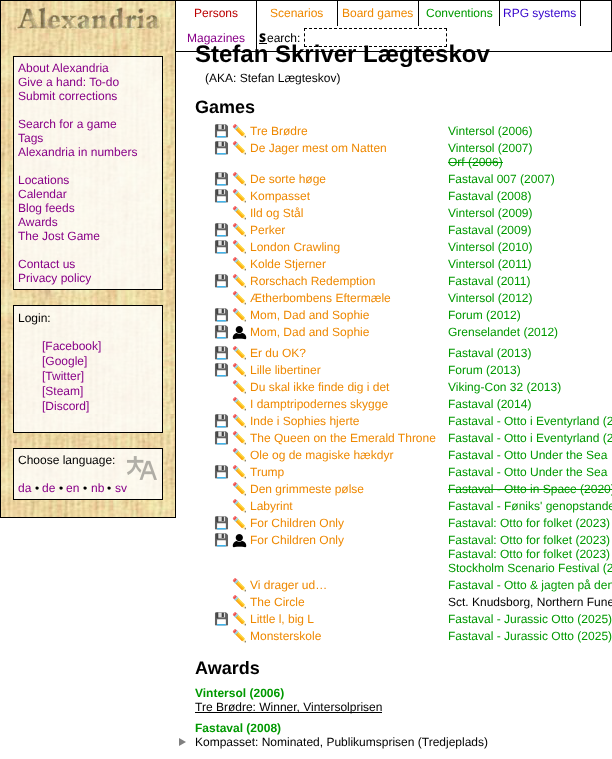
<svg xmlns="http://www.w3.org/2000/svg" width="612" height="759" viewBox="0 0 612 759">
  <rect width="100%" height="100%" fill="#ffffff"/>
  <image x="1" y="1" width="174" height="516" href="img1.png"/>
  <rect x="0.5" y="0.5" width="175" height="517" fill="none" stroke="#000000"/>
  <rect x="175.5" y="0.5" width="436" height="51" fill="none" stroke="#000000"/>
  <rect x="256" y="1" width="1" height="50" fill="#000000"/>
  <text x="194" y="17" font-family="Liberation Sans" font-size="12" fill="#bb0000">Persons</text>
  <rect x="337" y="1" width="1" height="25" fill="#000000"/>
  <text x="270" y="17" font-family="Liberation Sans" font-size="12" fill="#ee8800">Scenarios</text>
  <rect x="418" y="1" width="1" height="25" fill="#000000"/>
  <text x="342" y="17" font-family="Liberation Sans" font-size="12" fill="#ee8800">Board games</text>
  <rect x="499" y="1" width="1" height="25" fill="#000000"/>
  <text x="426" y="17" font-family="Liberation Sans" font-size="12" fill="#009900">Conventions</text>
  <rect x="580" y="1" width="1" height="25" fill="#000000"/>
  <text x="503" y="17" font-family="Liberation Sans" font-size="12" fill="#3300cc">RPG systems</text>
  <text x="187" y="42" font-family="Liberation Sans" font-size="12" fill="#880088">Magazines</text>
  <text x="259" y="42" font-family="Noto Sans" font-size="12" font-weight="900" fill="#000000">S</text>
  <rect x="259" y="43" width="8" height="1" fill="#000000"/>
  <text x="267" y="42" font-family="Liberation Sans" font-size="12" fill="#000000">earch:</text>
  <path d="M304 28.5H447" fill="none" stroke="#000000" stroke-dasharray="3 2"/>
  <path d="M446.5 28V47" fill="none" stroke="#000000" stroke-dasharray="3 2.33"/>
  <path d="M304 46.5H447" fill="none" stroke="#000000" stroke-dasharray="3 2"/>
  <path d="M304.5 28V47" fill="none" stroke="#000000" stroke-dasharray="3 2.33"/>
  <image x="16" y="7" width="148" height="25" href="img2.png"/>
  <rect x="13.5" y="56.5" width="149" height="233" fill="#ffffff" fill-opacity="0.8" stroke="#000000"/>
  <text x="18" y="72" font-family="Liberation Sans" font-size="12" fill="#880088">About Alexandria</text>
  <text x="18" y="86" font-family="Liberation Sans" font-size="12" fill="#880088">Give a hand: To-do</text>
  <text x="18" y="100" font-family="Liberation Sans" font-size="12" fill="#880088">Submit corrections</text>
  <text x="18" y="128" font-family="Liberation Sans" font-size="12" fill="#880088">Search for a game</text>
  <text x="18" y="142" font-family="Liberation Sans" font-size="12" fill="#880088">Tags</text>
  <text x="18" y="156" font-family="Liberation Sans" font-size="12" fill="#880088">Alexandria in numbers</text>
  <text x="18" y="184" font-family="Liberation Sans" font-size="12" fill="#880088">Locations</text>
  <text x="18" y="198" font-family="Liberation Sans" font-size="12" fill="#880088">Calendar</text>
  <text x="18" y="212" font-family="Liberation Sans" font-size="12" fill="#880088">Blog feeds</text>
  <text x="18" y="226" font-family="Liberation Sans" font-size="12" fill="#880088">Awards</text>
  <text x="18" y="240" font-family="Liberation Sans" font-size="12" fill="#880088">The Jost Game</text>
  <text x="18" y="268" font-family="Liberation Sans" font-size="12" fill="#880088">Contact us</text>
  <text x="18" y="282" font-family="Liberation Sans" font-size="12" fill="#880088">Privacy policy</text>
  <rect x="13.5" y="305.5" width="149" height="127" fill="#ffffff" fill-opacity="0.8" stroke="#000000"/>
  <text x="18" y="322" font-family="Liberation Sans" font-size="12" fill="#000000">Login:</text>
  <text x="42" y="350" font-family="Liberation Sans" font-size="12" fill="#880088">[Facebook]</text>
  <text x="42" y="365" font-family="Liberation Sans" font-size="12" fill="#880088">[Google]</text>
  <text x="42" y="380" font-family="Liberation Sans" font-size="12" fill="#880088">[Twitter]</text>
  <text x="42" y="395" font-family="Liberation Sans" font-size="12" fill="#880088">[Steam]</text>
  <text x="42" y="410" font-family="Liberation Sans" font-size="12" fill="#880088">[Discord]</text>
  <rect x="13.5" y="448.5" width="149" height="51" fill="#ffffff" fill-opacity="0.8" stroke="#000000"/>
  <text x="18" y="464" font-family="Liberation Sans" font-size="12" fill="#000000">Choose language:</text>
  <image x="127" y="456" width="30" height="24" href="img3.png"/>
  <text x="18" y="492" font-family="Liberation Sans" font-size="12" fill="#880088">da</text>
  <text x="35" y="492" font-family="Liberation Sans" font-size="12" fill="#000000">•</text>
  <text x="42" y="492" font-family="Liberation Sans" font-size="12" fill="#880088">de</text>
  <text x="59" y="492" font-family="Liberation Sans" font-size="12" fill="#000000">•</text>
  <text x="66" y="492" font-family="Liberation Sans" font-size="12" fill="#880088">en</text>
  <text x="83" y="492" font-family="Liberation Sans" font-size="12" fill="#000000">•</text>
  <text x="91" y="492" font-family="Liberation Sans" font-size="12" fill="#880088">nb</text>
  <text x="107" y="492" font-family="Liberation Sans" font-size="12" fill="#000000">•</text>
  <text x="115" y="492" font-family="Liberation Sans" font-size="12" fill="#880088">sv</text>
  <text x="195" y="62" font-family="Liberation Sans" font-size="24" font-weight="bold" fill="#000000">Stefan Skriver Lægteskov</text>
  <text x="205" y="82" font-family="Liberation Sans" font-size="12" fill="#000000">(AKA: Stefan Lægteskov)</text>
  <text x="195" y="113" font-family="Liberation Sans" font-size="18" font-weight="bold" fill="#000000">Games</text>
  <text x="214" y="135" font-family="Noto Color Emoji" font-size="12" fill="#880088">💾</text>
  <text x="232" y="135" font-family="Noto Color Emoji" font-size="12" fill="#000000">✏️</text>
  <text x="250" y="135" font-family="Liberation Sans" font-size="12" fill="#ee8800">Tre Brødre</text>
  <text x="448" y="135" font-family="Liberation Sans" font-size="12" fill="#009900">Vintersol (2006)</text>
  <text x="214" y="152" font-family="Noto Color Emoji" font-size="12" fill="#880088">💾</text>
  <text x="232" y="152" font-family="Noto Color Emoji" font-size="12" fill="#000000">✏️</text>
  <text x="250" y="152" font-family="Liberation Sans" font-size="12" fill="#ee8800">De Jager mest om Natten</text>
  <text x="448" y="152" font-family="Liberation Sans" font-size="12" fill="#009900">Vintersol (2007)</text>
  <text x="448" y="166" font-family="Liberation Sans" font-size="12" fill="#009900">Orf (2006)</text>
  <rect x="448" y="162" width="55" height="1" fill="#009900"/>
  <text x="214" y="183" font-family="Noto Color Emoji" font-size="12" fill="#880088">💾</text>
  <text x="232" y="183" font-family="Noto Color Emoji" font-size="12" fill="#000000">✏️</text>
  <text x="250" y="183" font-family="Liberation Sans" font-size="12" fill="#ee8800">De sorte høge</text>
  <text x="448" y="183" font-family="Liberation Sans" font-size="12" fill="#009900">Fastaval 007 (2007)</text>
  <text x="214" y="200" font-family="Noto Color Emoji" font-size="12" fill="#880088">💾</text>
  <text x="232" y="200" font-family="Noto Color Emoji" font-size="12" fill="#000000">✏️</text>
  <text x="250" y="200" font-family="Liberation Sans" font-size="12" fill="#ee8800">Kompasset</text>
  <text x="448" y="200" font-family="Liberation Sans" font-size="12" fill="#009900">Fastaval (2008)</text>
  <text x="232" y="217" font-family="Noto Color Emoji" font-size="12" fill="#000000">✏️</text>
  <text x="250" y="217" font-family="Liberation Sans" font-size="12" fill="#ee8800">Ild og Stål</text>
  <text x="448" y="217" font-family="Liberation Sans" font-size="12" fill="#009900">Vintersol (2009)</text>
  <text x="214" y="234" font-family="Noto Color Emoji" font-size="12" fill="#880088">💾</text>
  <text x="232" y="234" font-family="Noto Color Emoji" font-size="12" fill="#000000">✏️</text>
  <text x="250" y="234" font-family="Liberation Sans" font-size="12" fill="#ee8800">Perker</text>
  <text x="448" y="234" font-family="Liberation Sans" font-size="12" fill="#009900">Fastaval (2009)</text>
  <text x="214" y="251" font-family="Noto Color Emoji" font-size="12" fill="#880088">💾</text>
  <text x="232" y="251" font-family="Noto Color Emoji" font-size="12" fill="#000000">✏️</text>
  <text x="250" y="251" font-family="Liberation Sans" font-size="12" fill="#ee8800">London Crawling</text>
  <text x="448" y="251" font-family="Liberation Sans" font-size="12" fill="#009900">Vintersol (2010)</text>
  <text x="232" y="268" font-family="Noto Color Emoji" font-size="12" fill="#000000">✏️</text>
  <text x="250" y="268" font-family="Liberation Sans" font-size="12" fill="#ee8800">Kolde Stjerner</text>
  <text x="448" y="268" font-family="Liberation Sans" font-size="12" fill="#009900">Vintersol (2011)</text>
  <text x="214" y="285" font-family="Noto Color Emoji" font-size="12" fill="#880088">💾</text>
  <text x="232" y="285" font-family="Noto Color Emoji" font-size="12" fill="#000000">✏️</text>
  <text x="250" y="285" font-family="Liberation Sans" font-size="12" fill="#ee8800">Rorschach Redemption</text>
  <text x="448" y="285" font-family="Liberation Sans" font-size="12" fill="#009900">Fastaval (2011)</text>
  <text x="232" y="302" font-family="Noto Color Emoji" font-size="12" fill="#000000">✏️</text>
  <text x="250" y="302" font-family="Liberation Sans" font-size="12" fill="#ee8800">Ætherbombens Eftermæle</text>
  <text x="448" y="302" font-family="Liberation Sans" font-size="12" fill="#009900">Vintersol (2012)</text>
  <text x="214" y="319" font-family="Noto Color Emoji" font-size="12" fill="#880088">💾</text>
  <text x="232" y="319" font-family="Noto Color Emoji" font-size="12" fill="#000000">✏️</text>
  <text x="250" y="319" font-family="Liberation Sans" font-size="12" fill="#ee8800">Mom, Dad and Sophie</text>
  <text x="448" y="319" font-family="Liberation Sans" font-size="12" fill="#009900">Forum (2012)</text>
  <text x="214" y="336" font-family="Noto Color Emoji" font-size="12" fill="#880088">💾</text>
  <image x="232" y="326" width="15" height="14" href="img4.png"/>
  <text x="250" y="336" font-family="Liberation Sans" font-size="12" fill="#ee8800">Mom, Dad and Sophie</text>
  <text x="448" y="336" font-family="Liberation Sans" font-size="12" fill="#009900">Grenselandet (2012)</text>
  <text x="214" y="357" font-family="Noto Color Emoji" font-size="12" fill="#880088">💾</text>
  <text x="232" y="357" font-family="Noto Color Emoji" font-size="12" fill="#000000">✏️</text>
  <text x="250" y="357" font-family="Liberation Sans" font-size="12" fill="#ee8800">Er du OK?</text>
  <text x="448" y="357" font-family="Liberation Sans" font-size="12" fill="#009900">Fastaval (2013)</text>
  <text x="214" y="374" font-family="Noto Color Emoji" font-size="12" fill="#880088">💾</text>
  <text x="232" y="374" font-family="Noto Color Emoji" font-size="12" fill="#000000">✏️</text>
  <text x="250" y="374" font-family="Liberation Sans" font-size="12" fill="#ee8800">Lille libertiner</text>
  <text x="448" y="374" font-family="Liberation Sans" font-size="12" fill="#009900">Forum (2013)</text>
  <text x="232" y="391" font-family="Noto Color Emoji" font-size="12" fill="#000000">✏️</text>
  <text x="250" y="391" font-family="Liberation Sans" font-size="12" fill="#ee8800">Du skal ikke finde dig i det</text>
  <text x="448" y="391" font-family="Liberation Sans" font-size="12" fill="#009900">Viking-Con 32 (2013)</text>
  <text x="232" y="408" font-family="Noto Color Emoji" font-size="12" fill="#000000">✏️</text>
  <text x="250" y="408" font-family="Liberation Sans" font-size="12" fill="#ee8800">I damptripodernes skygge</text>
  <text x="448" y="408" font-family="Liberation Sans" font-size="12" fill="#009900">Fastaval (2014)</text>
  <text x="214" y="425" font-family="Noto Color Emoji" font-size="12" fill="#880088">💾</text>
  <text x="232" y="425" font-family="Noto Color Emoji" font-size="12" fill="#000000">✏️</text>
  <text x="250" y="425" font-family="Liberation Sans" font-size="12" fill="#ee8800">Inde i Sophies hjerte</text>
  <text x="448" y="425" font-family="Liberation Sans" font-size="12" fill="#009900">Fastaval - Otto i Eventyrland (2</text>
  <text x="214" y="442" font-family="Noto Color Emoji" font-size="12" fill="#880088">💾</text>
  <text x="232" y="442" font-family="Noto Color Emoji" font-size="12" fill="#000000">✏️</text>
  <text x="250" y="442" font-family="Liberation Sans" font-size="12" fill="#ee8800">The Queen on the Emerald Throne</text>
  <text x="448" y="442" font-family="Liberation Sans" font-size="12" fill="#009900">Fastaval - Otto i Eventyrland (2</text>
  <text x="232" y="459" font-family="Noto Color Emoji" font-size="12" fill="#000000">✏️</text>
  <text x="250" y="459" font-family="Liberation Sans" font-size="12" fill="#ee8800">Ole og de magiske hækdyr</text>
  <text x="448" y="459" font-family="Liberation Sans" font-size="12" fill="#009900">Fastaval - Otto Under the Sea</text>
  <text x="214" y="476" font-family="Noto Color Emoji" font-size="12" fill="#880088">💾</text>
  <text x="232" y="476" font-family="Noto Color Emoji" font-size="12" fill="#000000">✏️</text>
  <text x="250" y="476" font-family="Liberation Sans" font-size="12" fill="#ee8800">Trump</text>
  <text x="448" y="476" font-family="Liberation Sans" font-size="12" fill="#009900">Fastaval - Otto Under the Sea</text>
  <text x="232" y="493" font-family="Noto Color Emoji" font-size="12" fill="#000000">✏️</text>
  <text x="250" y="493" font-family="Liberation Sans" font-size="12" fill="#ee8800">Den grimmeste pølse</text>
  <text x="448" y="493" font-family="Liberation Sans" font-size="12" fill="#009900">Fastaval - Otto in Space (2020)</text>
  <rect x="448" y="489" width="164" height="1" fill="#009900"/>
  <text x="232" y="510" font-family="Noto Color Emoji" font-size="12" fill="#000000">✏️</text>
  <text x="250" y="510" font-family="Liberation Sans" font-size="12" fill="#ee8800">Labyrint</text>
  <text x="448" y="510" font-family="Liberation Sans" font-size="12" fill="#009900">Fastaval - Føniks' genopstande</text>
  <text x="214" y="527" font-family="Noto Color Emoji" font-size="12" fill="#880088">💾</text>
  <text x="232" y="527" font-family="Noto Color Emoji" font-size="12" fill="#000000">✏️</text>
  <text x="250" y="527" font-family="Liberation Sans" font-size="12" fill="#ee8800">For Children Only</text>
  <text x="448" y="527" font-family="Liberation Sans" font-size="12" fill="#009900">Fastaval: Otto for folket (2023)</text>
  <text x="214" y="544" font-family="Noto Color Emoji" font-size="12" fill="#880088">💾</text>
  <image x="232" y="534" width="15" height="14" href="img4.png"/>
  <text x="250" y="544" font-family="Liberation Sans" font-size="12" fill="#ee8800">For Children Only</text>
  <text x="448" y="544" font-family="Liberation Sans" font-size="12" fill="#009900">Fastaval: Otto for folket (2023)</text>
  <text x="448" y="558" font-family="Liberation Sans" font-size="12" fill="#009900">Fastaval: Otto for folket (2023)</text>
  <text x="448" y="572" font-family="Liberation Sans" font-size="12" fill="#009900">Stockholm Scenario Festival (2</text>
  <text x="232" y="589" font-family="Noto Color Emoji" font-size="12" fill="#000000">✏️</text>
  <text x="250" y="589" font-family="Liberation Sans" font-size="12" fill="#ee8800">Vi drager ud…</text>
  <text x="448" y="589" font-family="Liberation Sans" font-size="12" fill="#009900">Fastaval - Otto &amp; jagten på den</text>
  <text x="232" y="606" font-family="Noto Color Emoji" font-size="12" fill="#000000">✏️</text>
  <text x="250" y="606" font-family="Liberation Sans" font-size="12" fill="#ee8800">The Circle</text>
  <text x="448" y="606" font-family="Liberation Sans" font-size="12" fill="#000000">Sct. Knudsborg, Northern Fune</text>
  <text x="214" y="623" font-family="Noto Color Emoji" font-size="12" fill="#880088">💾</text>
  <text x="232" y="623" font-family="Noto Color Emoji" font-size="12" fill="#000000">✏️</text>
  <text x="250" y="623" font-family="Liberation Sans" font-size="12" fill="#ee8800">Little l, big L</text>
  <text x="448" y="623" font-family="Liberation Sans" font-size="12" fill="#009900">Fastaval - Jurassic Otto (2025)</text>
  <text x="232" y="640" font-family="Noto Color Emoji" font-size="12" fill="#000000">✏️</text>
  <text x="250" y="640" font-family="Liberation Sans" font-size="12" fill="#ee8800">Monsterskole</text>
  <text x="448" y="640" font-family="Liberation Sans" font-size="12" fill="#009900">Fastaval - Jurassic Otto (2025)</text>
  <text x="195" y="674" font-family="Liberation Sans" font-size="18" font-weight="bold" fill="#000000">Awards</text>
  <text x="195" y="697" font-family="Liberation Sans" font-size="12" font-weight="bold" fill="#009900">Vintersol (2006)</text>
  <rect x="195" y="712" width="187" height="1" fill="#000000"/>
  <text x="195" y="711" font-family="Liberation Sans" font-size="12" fill="#000000">Tre Brødre: Winner, Vintersolprisen</text>
  <text x="195" y="732" font-family="Liberation Sans" font-size="12" font-weight="bold" fill="#009900">Fastaval (2008)</text>
  <path d="M179 738L186 742L179 746Z" fill="#808080"/>
  <text x="195" y="746" font-family="Liberation Sans" font-size="12" fill="#000000">Kompasset: Nominated, Publikumsprisen (Tredjeplads)</text>
</svg>
